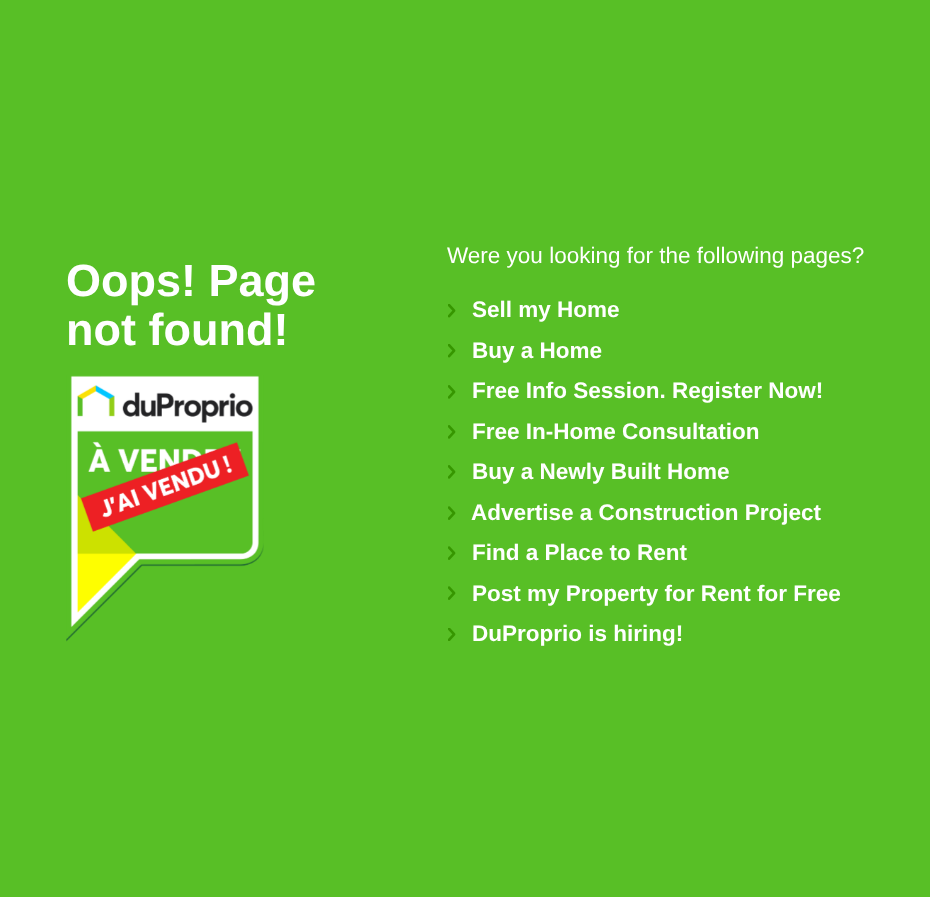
<svg xmlns="http://www.w3.org/2000/svg" width="930" height="897" viewBox="0 0 930 897">
  <rect width="100%" height="100%" fill="#58bf26"/>
  <text x="66" y="296" font-family="Liberation Sans" font-size="45" font-weight="bold" fill="#ffffff">Oops! Page</text>
  <text x="66" y="345" font-family="Liberation Sans" font-size="45" font-weight="bold" fill="#ffffff">not found!</text>
  <image x="66" y="375" width="198" height="267" href="img1.png"/>
  <text x="447" y="263" font-family="Liberation Sans" font-size="22.5" fill="#ffffff">Were you looking for the following pages?</text>
  <image x="448" y="304" width="8" height="14" href="img2.png"/>
  <text x="472" y="317" font-family="Liberation Sans" font-size="22.5" font-weight="bold" fill="#ffffff">Sell my Home</text>
  <image x="448" y="344" width="8" height="14" href="img2.png"/>
  <text x="472" y="358" font-family="Liberation Sans" font-size="22.5" font-weight="bold" fill="#ffffff">Buy a Home</text>
  <image x="448" y="385" width="8" height="14" href="img3.png"/>
  <text x="472" y="398" font-family="Liberation Sans" font-size="22.5" font-weight="bold" fill="#ffffff">Free Info Session. Register Now!</text>
  <image x="448" y="425" width="8" height="14" href="img3.png"/>
  <text x="472" y="439" font-family="Liberation Sans" font-size="22.5" font-weight="bold" fill="#ffffff">Free In-Home Consultation</text>
  <image x="448" y="465" width="8" height="14" href="img3.png"/>
  <text x="472" y="479" font-family="Liberation Sans" font-size="22.5" font-weight="bold" fill="#ffffff">Buy a Newly Built Home</text>
  <image x="448" y="506" width="8" height="14" href="img4.png"/>
  <text x="471" y="520" font-family="Liberation Sans" font-size="22.5" font-weight="bold" fill="#ffffff">Advertise a Construction Project</text>
  <image x="448" y="546" width="8" height="14" href="img4.png"/>
  <text x="472" y="560" font-family="Liberation Sans" font-size="22.5" font-weight="bold" fill="#ffffff">Find a Place to Rent</text>
  <image x="448" y="586" width="8" height="14" href="img4.png"/>
  <text x="472" y="601" font-family="Liberation Sans" font-size="22.5" font-weight="bold" fill="#ffffff">Post my Property for Rent for Free</text>
  <image x="448" y="628" width="8" height="13" href="img5.png"/>
  <text x="472" y="641" font-family="Liberation Sans" font-size="22.5" font-weight="bold" fill="#ffffff">DuProprio is hiring!</text>
</svg>
